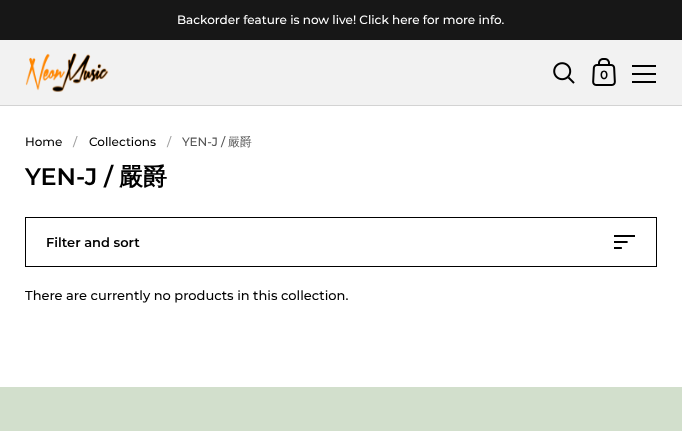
<svg xmlns="http://www.w3.org/2000/svg" width="682" height="431" viewBox="0 0 682 431">
  <rect width="100%" height="100%" fill="#ffffff"/>
  <rect x="0" y="0" width="682" height="40" fill="#171717"/>
  <text x="177" y="24" font-family="Montserrat" font-size="12" font-weight="500" fill="#ffffff">Backorder feature is now live! Click here for more info.</text>
  <rect x="0" y="105" width="682" height="1" fill="#d3d3d3"/>
  <rect x="0" y="40" width="682" height="65" fill="#f2f2f2"/>
  <image x="25" y="53" width="84" height="39" href="img1.png"/>
  <image x="553" y="62" width="22" height="22" href="img2.png"/>
  <image x="592" y="58" width="24" height="28" href="img3.png"/>
  <text x="600" y="79" font-family="Montserrat" font-size="12" font-weight="600" fill="#000000">0</text>
  <rect x="632" y="65" width="24" height="2" fill="#000000"/>
  <rect x="632" y="73" width="24" height="2" fill="#000000"/>
  <rect x="632" y="81" width="24" height="2" fill="#000000"/>
  <text x="25" y="146" font-family="Montserrat" font-size="12" font-weight="500" fill="#000000">Home</text>
  <text x="73" y="146" font-family="Montserrat" font-size="12" font-weight="500" fill="#a3a3a3">/</text>
  <text x="89" y="146" font-family="Montserrat" font-size="12" font-weight="500" fill="#000000">Collections</text>
  <text x="167" y="146" font-family="Montserrat" font-size="12" font-weight="500" fill="#a3a3a3">/</text>
  <text x="182" y="146" font-family="Montserrat" font-size="12" font-weight="500" fill="#575757">YEN-J /</text>
  <text x="228" y="146" font-family="WenQuanYi Zen Hei" font-size="12" font-weight="500" fill="#575757">嚴爵</text>
  <text x="25" y="185" font-family="Montserrat" font-size="24" font-weight="600" fill="#000000">YEN-J /</text>
  <text x="119" y="185" font-family="WenQuanYi Zen Hei" font-size="24" font-weight="bold" fill="#000000">嚴爵</text>
  <rect x="25.5" y="217.5" width="631" height="49" fill="none" stroke="#000000"/>
  <text x="46" y="247" font-family="Montserrat" font-size="13" font-weight="600" fill="#000000">Filter and sort</text>
  <image x="614" y="235" width="21" height="14" href="img4.png"/>
  <text x="25" y="300" font-family="Montserrat" font-size="13" font-weight="500" fill="#000000">There are currently no products in this collection.</text>
  <rect x="0" y="387" width="682" height="44" fill="#d2dfcc"/>
</svg>
